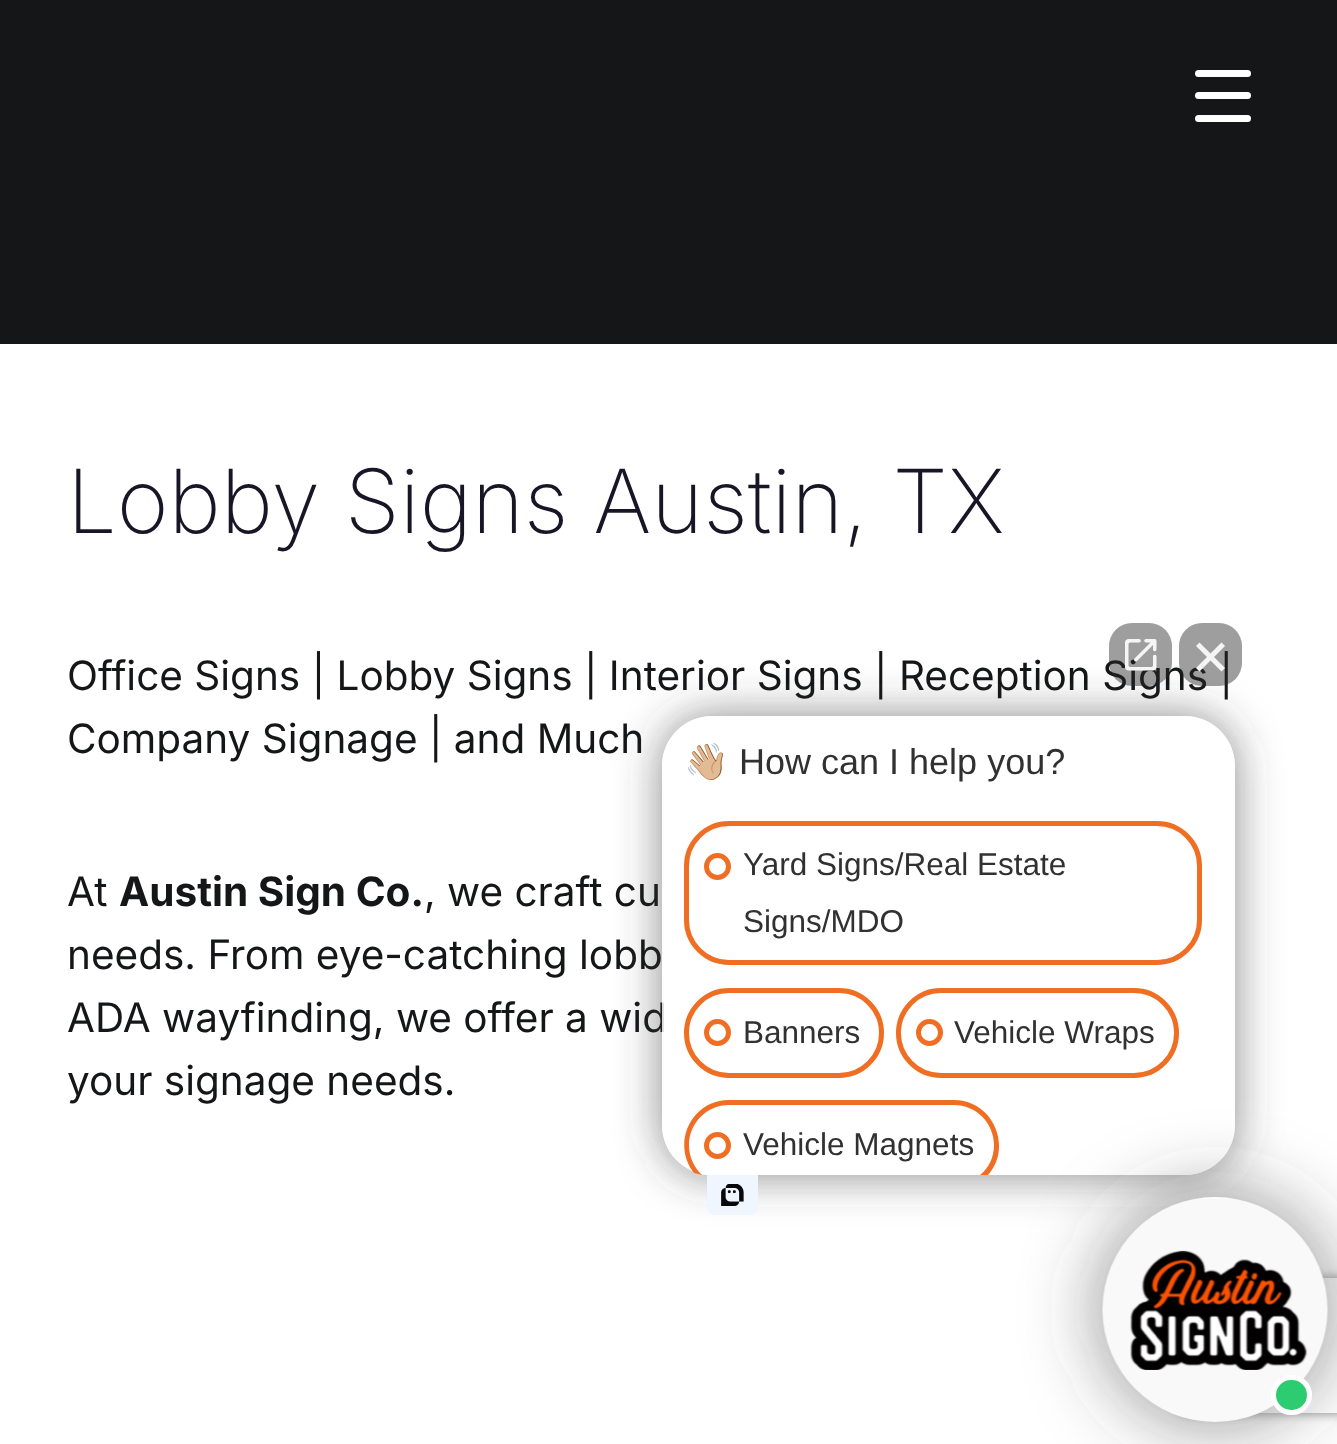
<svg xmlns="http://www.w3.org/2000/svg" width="1337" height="1444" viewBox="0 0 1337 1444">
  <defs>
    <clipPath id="clip1"><path d="M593 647H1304V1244H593ZM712 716H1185C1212.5 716 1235 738.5 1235 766V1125C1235 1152.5 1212.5 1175 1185 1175H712C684.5 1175 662 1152.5 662 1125V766C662 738.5 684.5 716 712 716Z" clip-rule="evenodd"/></clipPath>
    <filter id="blur1" x="-50%" y="-200%" width="200%" height="500%"><feGaussianBlur stdDeviation="22.5"/></filter>
    <clipPath id="clip2"><rect x="662" y="716" width="573" height="459" rx="45"/></clipPath>
    <filter id="blur2" x="-50%" y="-200%" width="200%" height="500%"><feGaussianBlur stdDeviation="39.5"/></filter>
    <clipPath id="clip3"><path d="M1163 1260H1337V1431H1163ZM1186 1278H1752C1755 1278 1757 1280 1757 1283V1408C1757 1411 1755 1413 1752 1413H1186C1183 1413 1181 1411 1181 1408V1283C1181 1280 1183 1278 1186 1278Z" clip-rule="evenodd"/></clipPath>
    <filter id="blur3" x="-50%" y="-200%" width="200%" height="500%"><feGaussianBlur stdDeviation="5.5"/></filter>
  </defs>
  <rect width="100%" height="100%" fill="#ffffff"/>
  <rect x="0" y="0" width="1337" height="344" fill="#141617"/>
  <rect x="1195" y="92" width="56" height="7" rx="3.5" fill="#ffffff"/>
  <rect x="1195" y="70" width="56" height="7" rx="3.5" fill="#ffffff"/>
  <rect x="1195" y="115" width="56" height="7" rx="3.5" fill="#ffffff"/>
  <text x="67" y="533" font-family="Inter" font-size="88.4" font-weight="200" fill="#181626">Lobby Signs Austin, TX</text>
  <text x="67" y="690" font-family="Inter" font-size="40.5" fill="#141617">Office Signs | Lobby Signs | Interior Signs | Reception Signs |</text>
  <text x="67" y="753" font-family="Inter" font-size="40.5" fill="#141617">Company Signage | and Much</text>
  <text x="67" y="906" font-family="Inter" font-size="40.5" fill="#141617">At</text>
  <text x="119" y="906" font-family="Inter" font-size="40.5" font-weight="bold" fill="#141617">Austin Sign Co.</text>
  <text x="424" y="906" font-family="Inter" font-size="40.5" fill="#141617">, we craft cu</text>
  <text x="67" y="969" font-family="Inter" font-size="40.5" fill="#141617">needs. From eye-catching lobb</text>
  <text x="67" y="1032" font-family="Inter" font-size="40.5" fill="#141617">ADA wayfinding, we offer a wid</text>
  <text x="67" y="1095" font-family="Inter" font-size="40.5" fill="#141617">your signage needs.</text>
  <g clip-path="url(#clip1)">
    <rect x="662" y="716" width="573" height="459" rx="50" fill="#3c3c3c" fill-opacity="0.6" filter="url(#blur1)"/>
  </g>
  <rect x="662" y="716" width="573" height="459" rx="50" fill="#ffffff" fill-opacity="0.85"/>
  <rect x="1109" y="623" width="63" height="63" rx="23" fill="#272727" fill-opacity="0.45"/>
  <image x="1125" y="639" width="32" height="32" href="img1.png"/>
  <rect x="1179" y="623" width="63" height="63" rx="23" fill="#272727" fill-opacity="0.45"/>
  <path d="M1196 646L1199.5 642.5L1225 668L1221.5 671.5Z" fill="#f5f5f5"/>
  <path d="M1221.5 642.5L1225 646L1199.5 671.5L1196 668Z" fill="#f5f5f5"/>
  <text x="684" y="774" font-family="Noto Color Emoji" font-size="36" fill="#313131">👋🏼</text>
  <text x="739" y="774" font-family="Liberation Sans" font-size="36" fill="#313131">How can I help you?</text>
  <rect x="686.5" y="823.5" width="513" height="139" rx="42.5" fill="none" stroke="#f06e23" stroke-width="5"/>
  <circle cx="717.5" cy="866.5" r="11" fill="none" stroke="#f06e23" stroke-width="5"/>
  <text x="743" y="875" font-family="Liberation Sans" font-size="31.5" fill="#313131">Yard Signs/Real Estate</text>
  <text x="743" y="932" font-family="Liberation Sans" font-size="31.5" fill="#313131">Signs/MDO</text>
  <rect x="686.5" y="990.5" width="195" height="85" rx="42.5" fill="none" stroke="#f06e23" stroke-width="5"/>
  <circle cx="717.5" cy="1032.5" r="11" fill="none" stroke="#f06e23" stroke-width="5"/>
  <text x="743" y="1043" font-family="Liberation Sans" font-size="31.5" fill="#313131">Banners</text>
  <rect x="898.5" y="990.5" width="278" height="85" rx="42.5" fill="none" stroke="#f06e23" stroke-width="5"/>
  <circle cx="929.5" cy="1032.5" r="11" fill="none" stroke="#f06e23" stroke-width="5"/>
  <text x="954" y="1043" font-family="Liberation Sans" font-size="31.5" fill="#313131">Vehicle Wraps</text>
  <image x="707" y="1175" width="51" height="40" href="img2.png"/>
  <g clip-path="url(#clip2)">
    <rect x="684" y="1100" width="315" height="90" rx="45" fill="#ffffff" fill-opacity="0.85"/>
  </g>
  <path d="M729 1100C691 1100 671 1144 694 1173L702 1175C694 1167 689 1157 689 1145C689 1123 707 1105 729 1105H954C976 1105 994 1123 994 1145C994 1157 989 1168 980 1175H988C1013 1147 993 1100 954 1100Z" fill="#f06e23"/>
  <circle cx="717.5" cy="1145.5" r="11" fill="none" stroke="#f06e23" stroke-width="5"/>
  <text x="743" y="1155" font-family="Liberation Sans" font-size="31.5" fill="#313131">Vehicle Magnets</text>
  <rect x="1103" y="1197" width="225" height="225" rx="112.5" fill="#3c3c3c" fill-opacity="0.6" filter="url(#blur2)"/>
  <g clip-path="url(#clip3)">
    <rect x="1181" y="1278" width="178" height="135" rx="5" fill="#808080" filter="url(#blur3)"/>
  </g>
  <image x="1102" y="1197" width="226" height="225" href="img3.png"/>
  <rect x="1273.5" y="1377.5" width="36" height="35" rx="17.5" fill="#2ecc71" stroke="#ffffff" stroke-width="5"/>
</svg>
